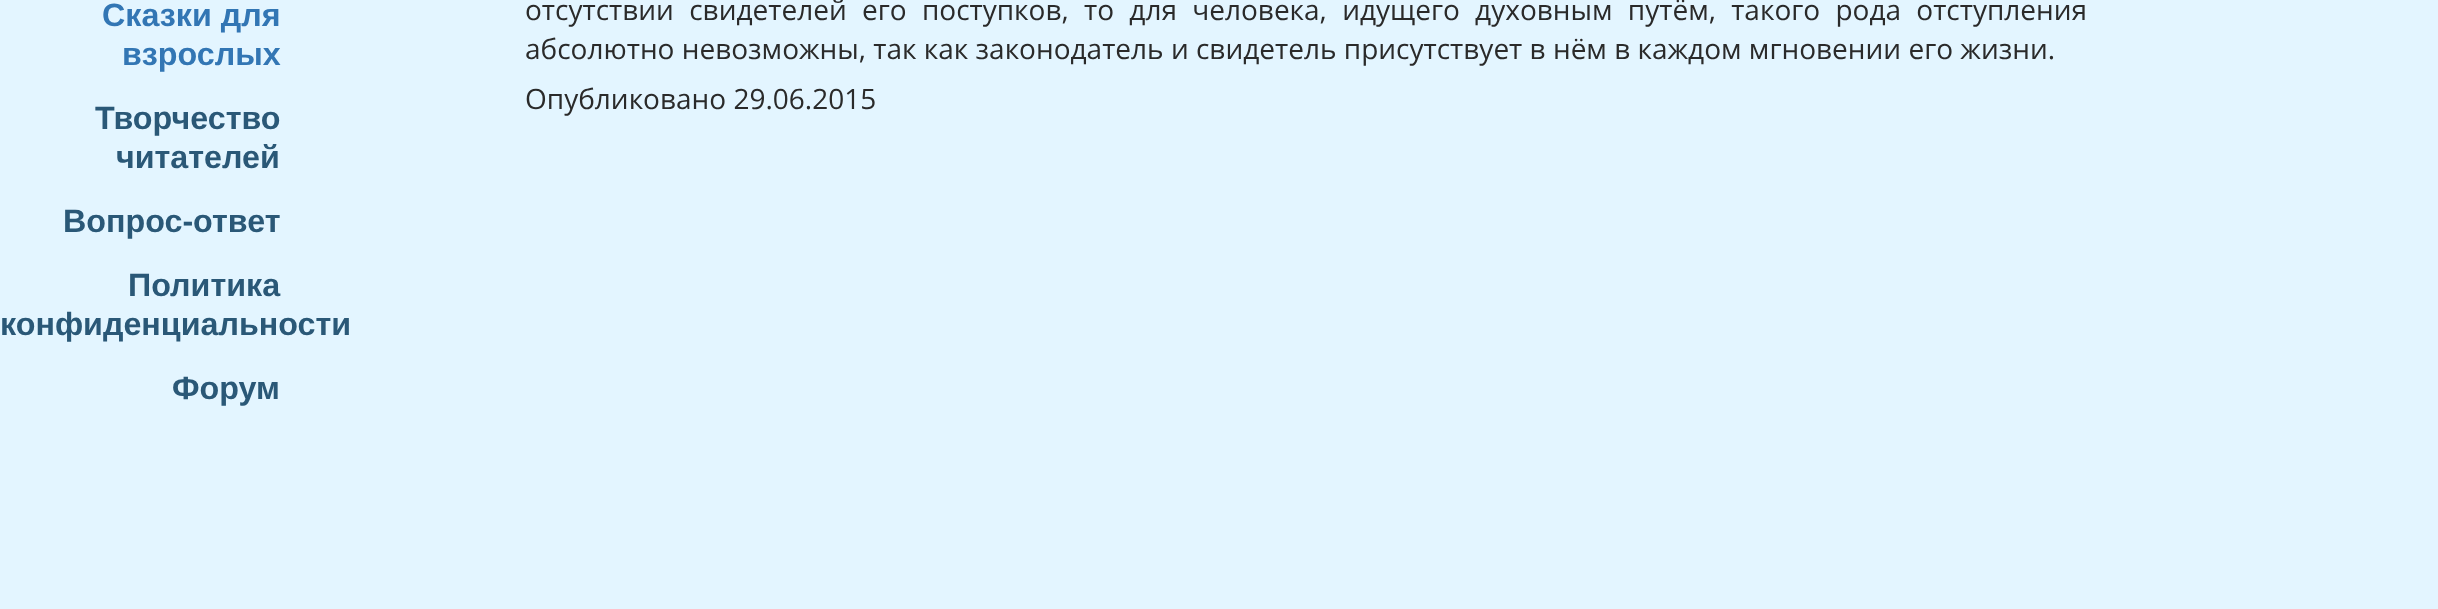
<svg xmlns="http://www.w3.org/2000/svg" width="2438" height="609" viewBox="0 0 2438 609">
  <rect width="100%" height="100%" fill="#e3f5ff"/>
  <text x="102" y="26" font-family="Liberation Sans" font-size="32.25" font-weight="bold" fill="#3276b4">Сказки для</text>
  <text x="122" y="65" font-family="Liberation Sans" font-size="32.25" font-weight="bold" fill="#3276b4">взрослых</text>
  <text x="95" y="129" font-family="Liberation Sans" font-size="32.25" font-weight="bold" fill="#2a5877">Творчество</text>
  <text x="116" y="168" font-family="Liberation Sans" font-size="32.25" font-weight="bold" fill="#2a5877">читателей</text>
  <text x="63" y="232" font-family="Liberation Sans" font-size="32.25" font-weight="bold" fill="#2a5877">Вопрос-ответ</text>
  <text x="128" y="296" font-family="Liberation Sans" font-size="32.25" font-weight="bold" fill="#2a5877">Политика</text>
  <text x="0" y="335" font-family="Liberation Sans" font-size="32.25" font-weight="bold" fill="#2a5877">конфиденциальности</text>
  <text x="172" y="399" font-family="Liberation Sans" font-size="32.25" font-weight="bold" fill="#2a5877">Форум</text>
  <text x="525" y="20" word-spacing="8" font-family="Open Sans" font-size="28" fill="#2a2a2a">отсутствии свидетелей его поступков, то для человека, идущего духовным путём, такого рода отступления</text>
  <text x="525" y="59" font-family="Open Sans" font-size="28" fill="#2a2a2a">абсолютно невозможны, так как законодатель и свидетель присутствует в нём в каждом мгновении его жизни.</text>
  <text x="525" y="109" font-family="Open Sans" font-size="28" fill="#2a2a2a">Опубликовано 29.06.2015</text>
</svg>
